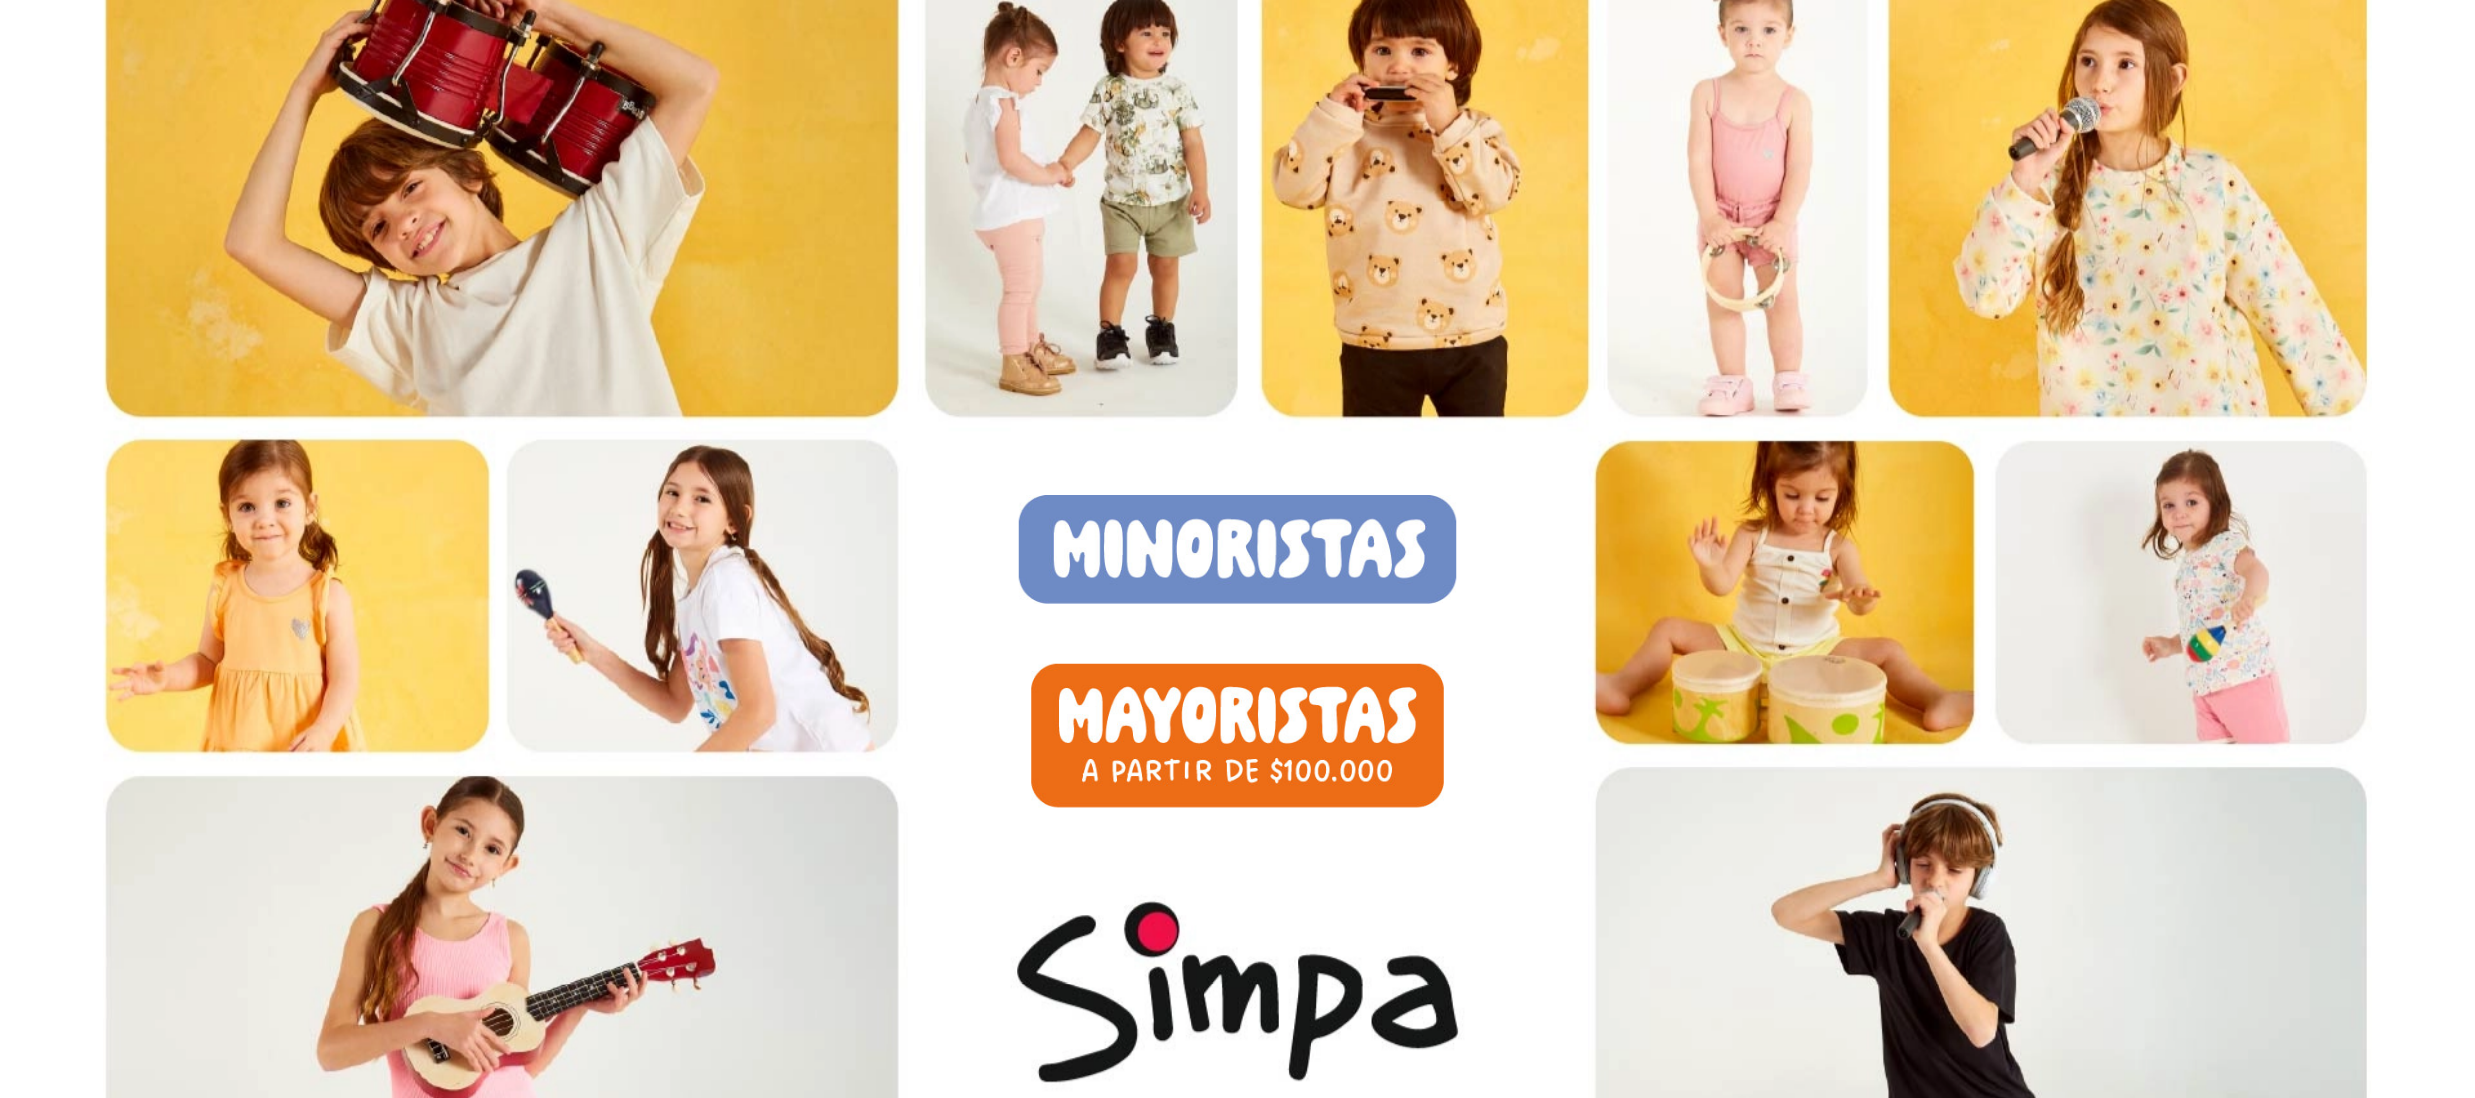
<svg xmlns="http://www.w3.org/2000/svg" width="2475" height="1098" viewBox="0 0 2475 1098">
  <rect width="100%" height="100%" fill="#ffffff"/>
  <image x="103" y="0" width="2269" height="1098" href="img1.png"/>
  <image x="1018" y="495" width="439" height="109" href="img2.png"/>
  <image x="1031" y="663" width="413" height="145" href="img3.png"/>
</svg>
